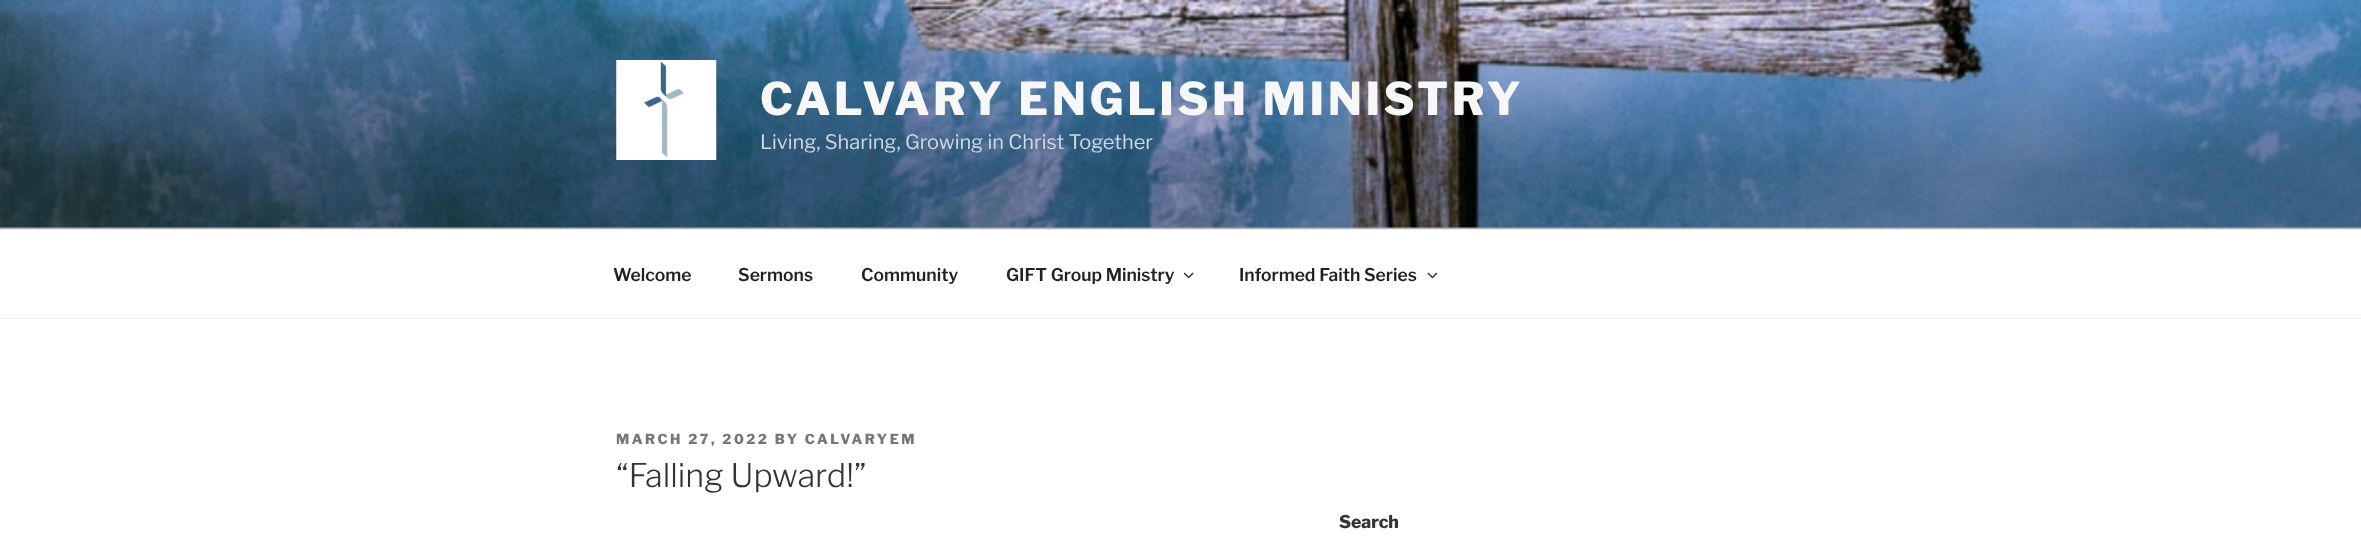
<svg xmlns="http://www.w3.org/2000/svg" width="2361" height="538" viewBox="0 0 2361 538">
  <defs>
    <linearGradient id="g1" gradientUnits="userSpaceOnUse" x1="1181" y1="0" x2="1181" y2="229"><stop offset="0" stop-color="#000000" stop-opacity="0"/><stop offset="0.75" stop-color="#000000" stop-opacity="0.3"/><stop offset="1" stop-color="#000000" stop-opacity="0.3"/></linearGradient>
  </defs>
  <rect width="100%" height="100%" fill="#ffffff"/>
  <rect x="0" y="227" width="2361" height="2" fill="#fafafa"/>
  <image x="0" y="0" width="2361" height="228" href="img1.png"/>
  <rect x="0" y="12" width="2361" height="217" fill="url(#g1)"/>
  <image x="616" y="60" width="101" height="100" href="img2.png"/>
  <text x="760" y="115" font-family="Libre Franklin" font-size="45" font-weight="100" letter-spacing="3.6" fill="#f7f7f7">CALVARY ENGLISH MINISTRY</text>
  <text x="760" y="149" font-family="'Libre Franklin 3'" font-size="20" font-weight="100" fill="#d1d9e0">Living, Sharing, Growing in Christ Together</text>
  <rect x="0" y="229" width="2361" height="1" fill="#eeeeee"/>
  <rect x="0" y="318" width="2361" height="1" fill="#eeeeee"/>
  <text x="613" y="281" font-family="'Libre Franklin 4'" font-size="17.5" font-weight="100" fill="#222222">Welcome</text>
  <text x="738" y="281" font-family="'Libre Franklin 4'" font-size="17.5" font-weight="100" fill="#222222">Sermons</text>
  <text x="861" y="281" font-family="'Libre Franklin 4'" font-size="17.5" font-weight="100" fill="#222222">Community</text>
  <text x="1006" y="281" font-family="'Libre Franklin 4'" font-size="17.5" font-weight="100" fill="#222222">GIFT Group Ministry</text>
  <image x="1183" y="272" width="11" height="7" href="img3.png"/>
  <text x="1239" y="281" font-family="'Libre Franklin 4'" font-size="17.5" font-weight="100" fill="#222222">Informed Faith Series</text>
  <image x="1427" y="272" width="11" height="7" href="img4.png"/>
  <text x="616" y="444" font-family="Libre Franklin" font-size="13.75" font-weight="100" letter-spacing="2.5" fill="#767676">MARCH 27, 2022 BY CALVARYEM</text>
  <text x="616" y="487" font-family="'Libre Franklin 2'" font-size="32.5" font-weight="100" fill="#333333">“Falling Upward!”</text>
  <text x="1339" y="528" font-family="Libre Franklin" font-size="17.5" font-weight="100" fill="#333333">Search</text>
</svg>
